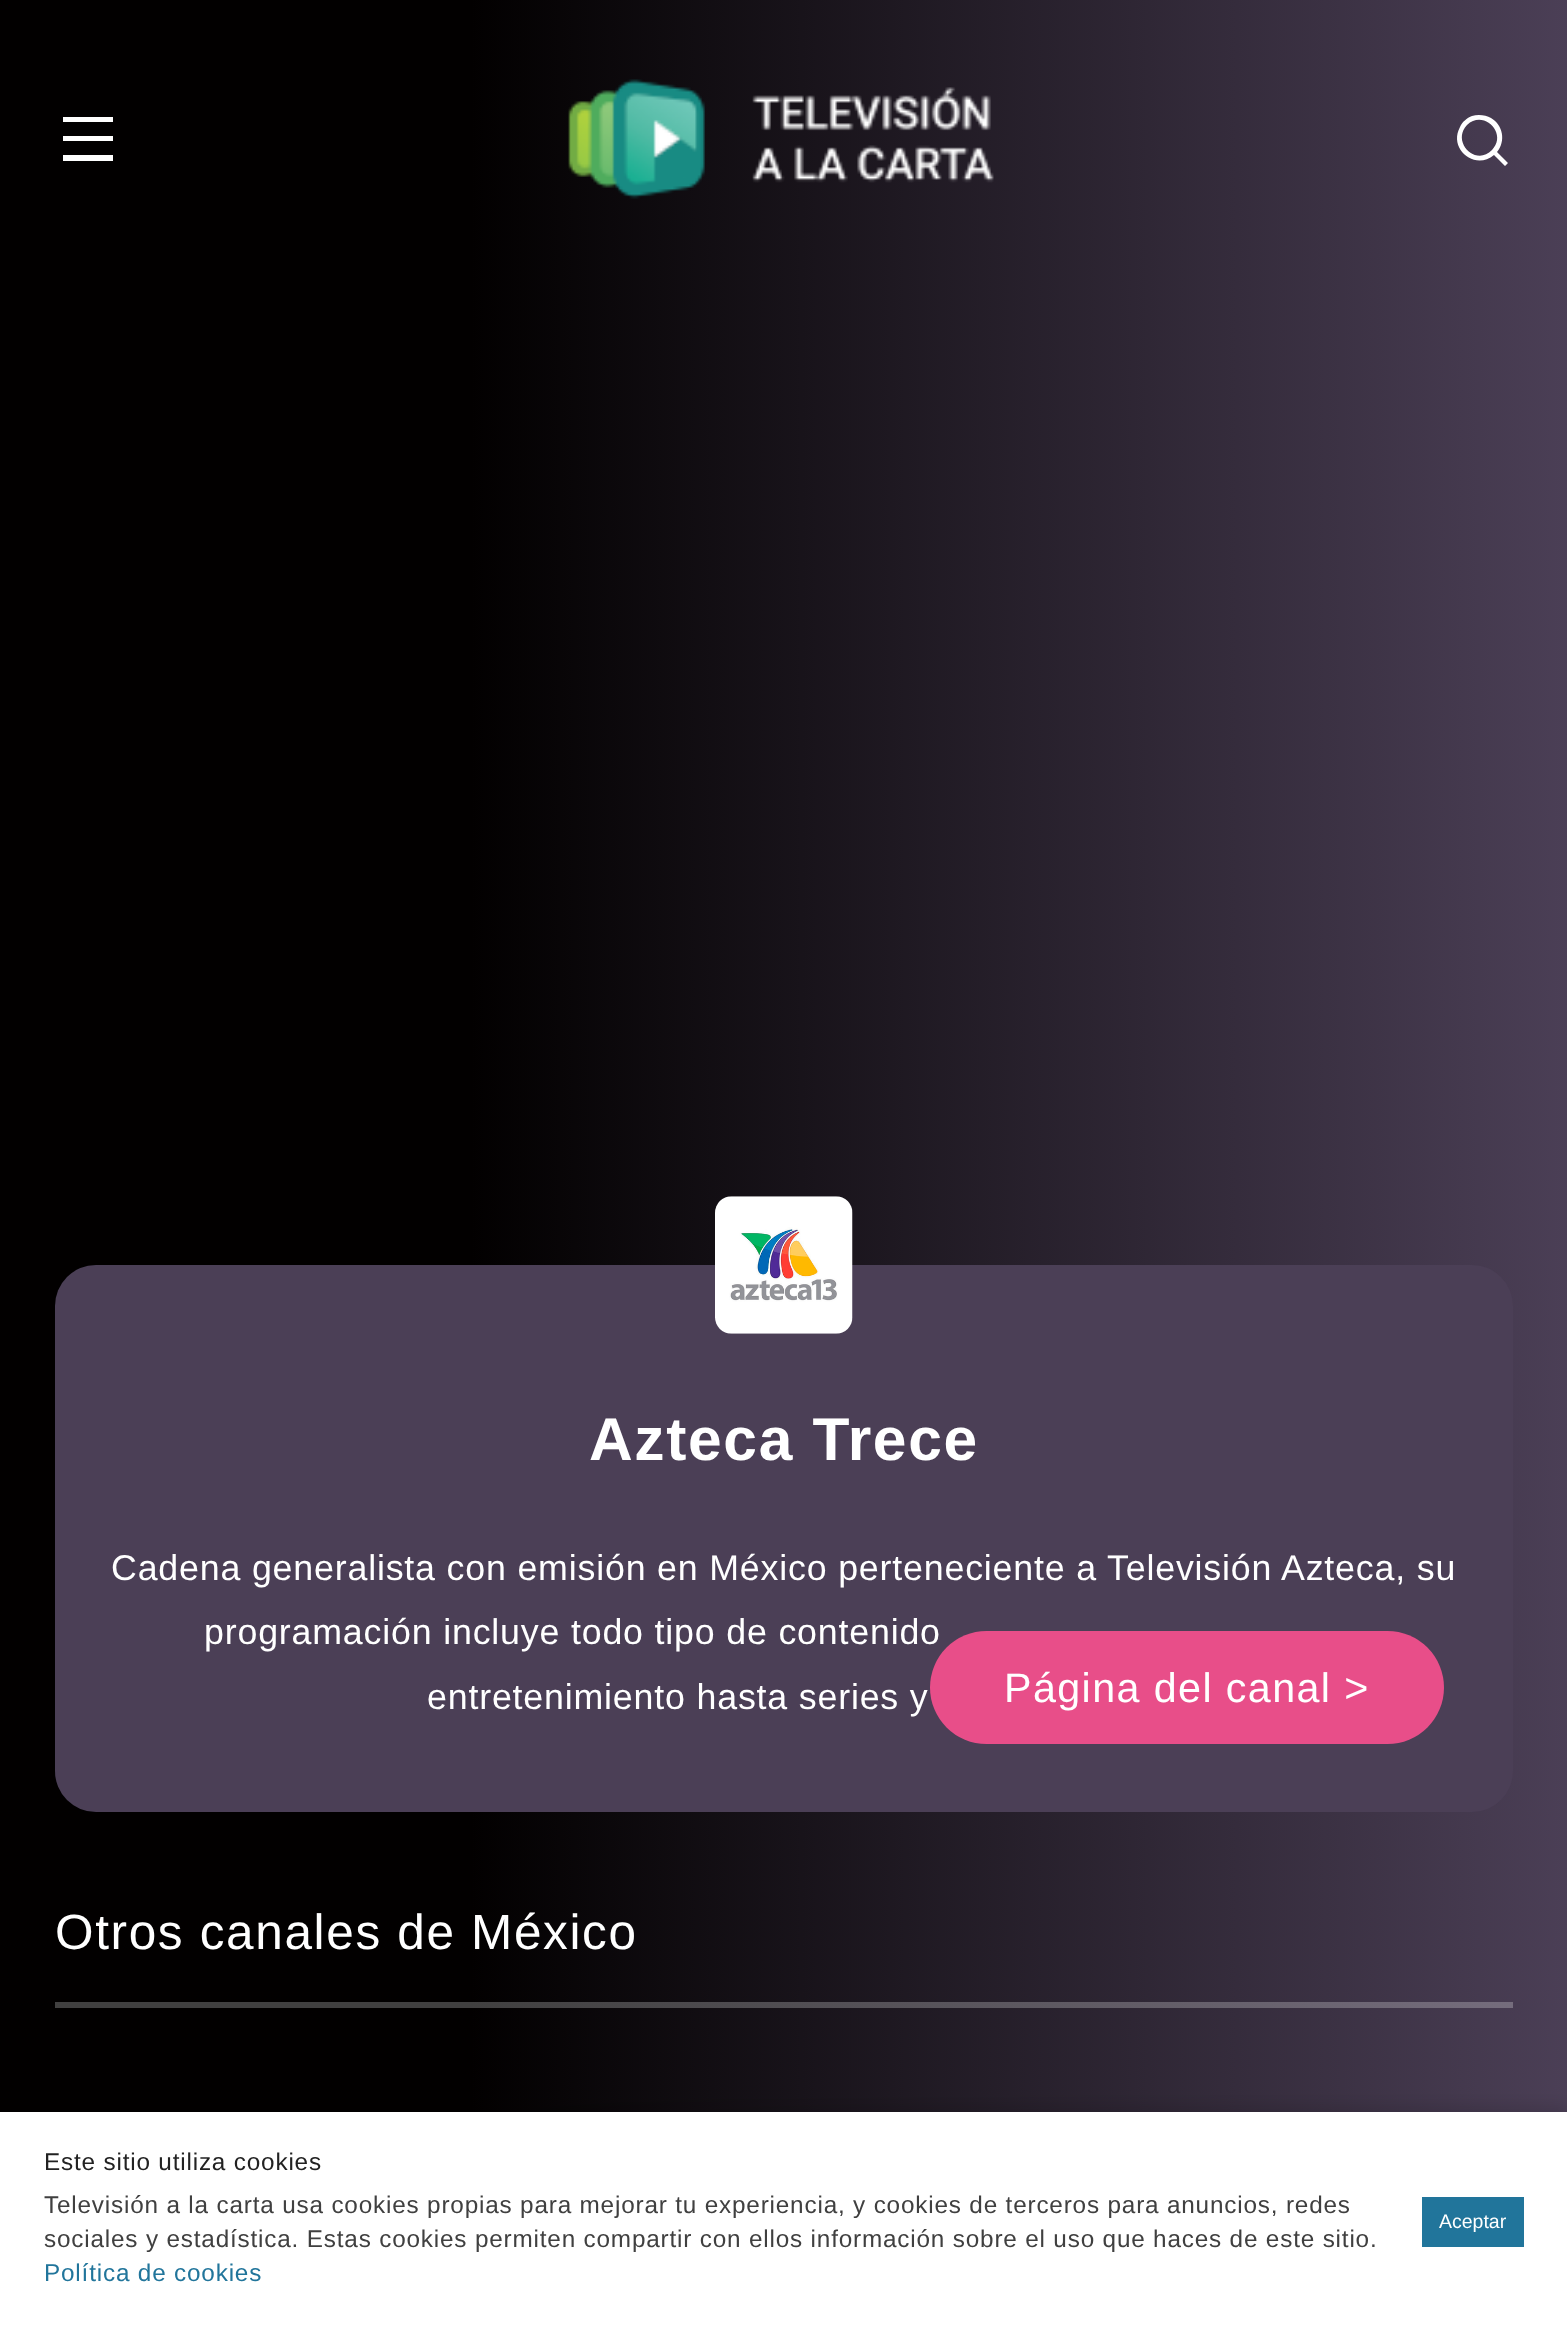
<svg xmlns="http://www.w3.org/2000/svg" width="1567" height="2332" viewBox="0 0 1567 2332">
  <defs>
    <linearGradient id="g1" gradientUnits="userSpaceOnUse" x1="0" y1="1166" x2="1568" y2="1166"><stop offset="0.3" stop-color="#020000"/><stop offset="1" stop-color="#4b3f56"/></linearGradient>
    <linearGradient id="g2" gradientUnits="userSpaceOnUse" x1="0" y1="1166" x2="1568" y2="1166"><stop offset="0.3" stop-color="#414040"/><stop offset="1" stop-color="#786f80"/></linearGradient>
    <filter id="blur1" x="-50%" y="-200%" width="200%" height="500%"><feGaussianBlur stdDeviation="7"/></filter>
  </defs>
  <rect width="100%" height="100%" fill="#ffffff"/>
  <rect x="0" y="0" width="1567" height="2112" fill="url(#g1)"/>
  <rect x="55" y="2002" width="1458" height="6" fill="url(#g2)"/>
  <path d="M63 117H113V122H63ZM63 136H113V141H63ZM63 155H113V161H63Z" fill="#ffffff"/>
  <image x="568" y="79" width="426" height="120" href="img1.png"/>
  <path d="M1497 152L1508 163L1505 166L1494 155C1475 171 1448 149 1460 127C1462 122 1467 118 1472 116C1478 114 1486 115 1491 118C1503 125 1506 141 1497 152ZM1492 150C1508 134 1484 109 1467 125C1451 142 1476 167 1492 150Z" fill="#ffffff"/>
  <rect x="55" y="1265" width="1458" height="547" rx="41" fill="#4b3f56"/>
  <image x="715" y="1196" width="138" height="138" href="img2.png"/>
  <text x="589" y="1460" font-family="Liberation Sans" font-size="60.5" font-weight="bold" letter-spacing="1.65" fill="#ffffff">Azteca Trece</text>
  <text x="111" y="1580" font-family="Liberation Sans" font-size="35.75" letter-spacing="0.82" fill="#ffffff">Cadena generalista con emisión en México perteneciente a Televisión Azteca, su</text>
  <text x="204" y="1644" font-family="Liberation Sans" font-size="35.75" letter-spacing="0.82" fill="#ffffff">programación incluye todo tipo de contenido</text>
  <text x="427" y="1709" font-family="Liberation Sans" font-size="35.75" letter-spacing="0.82" fill="#ffffff">entretenimiento hasta series y</text>
  <rect x="930" y="1631" width="514" height="113" rx="56.5" fill="#e84e89"/>
  <text x="1004" y="1702" font-family="Liberation Sans" font-size="41.25" letter-spacing="1.4" fill="#ffffff">Página del canal &gt;</text>
  <text x="55" y="1949" font-family="Liberation Sans" font-size="49.5" letter-spacing="1.65" fill="#ffffff">Otros canales de México</text>
  <rect x="0" y="2104" width="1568" height="220" fill="#000000" fill-opacity="0.1" filter="url(#blur1)"/>
  <rect x="0" y="2112" width="1567" height="220" fill="#ffffff"/>
  <text x="44" y="2170" font-family="Liberation Sans" font-size="24.3" letter-spacing="0.82" fill="#222222">Este sitio utiliza cookies</text>
  <text x="44" y="2213" font-family="Liberation Sans" font-size="24.3" letter-spacing="0.82" fill="#404040">Televisión a la carta usa cookies propias para mejorar tu experiencia, y cookies de terceros para anuncios, redes</text>
  <text x="44" y="2247" font-family="Liberation Sans" font-size="24.3" letter-spacing="0.82" fill="#404040">sociales y estadística. Estas cookies permiten compartir con ellos información sobre el uso que haces de este sitio.</text>
  <text x="44" y="2281" font-family="Liberation Sans" font-size="24.3" letter-spacing="0.82" fill="#21759b">Política de cookies</text>
  <rect x="1422" y="2197" width="102" height="50" fill="#21759b"/>
  <text x="1439" y="2228" font-family="Liberation Sans" font-size="19.5" fill="#ffffff">Aceptar</text>
</svg>
